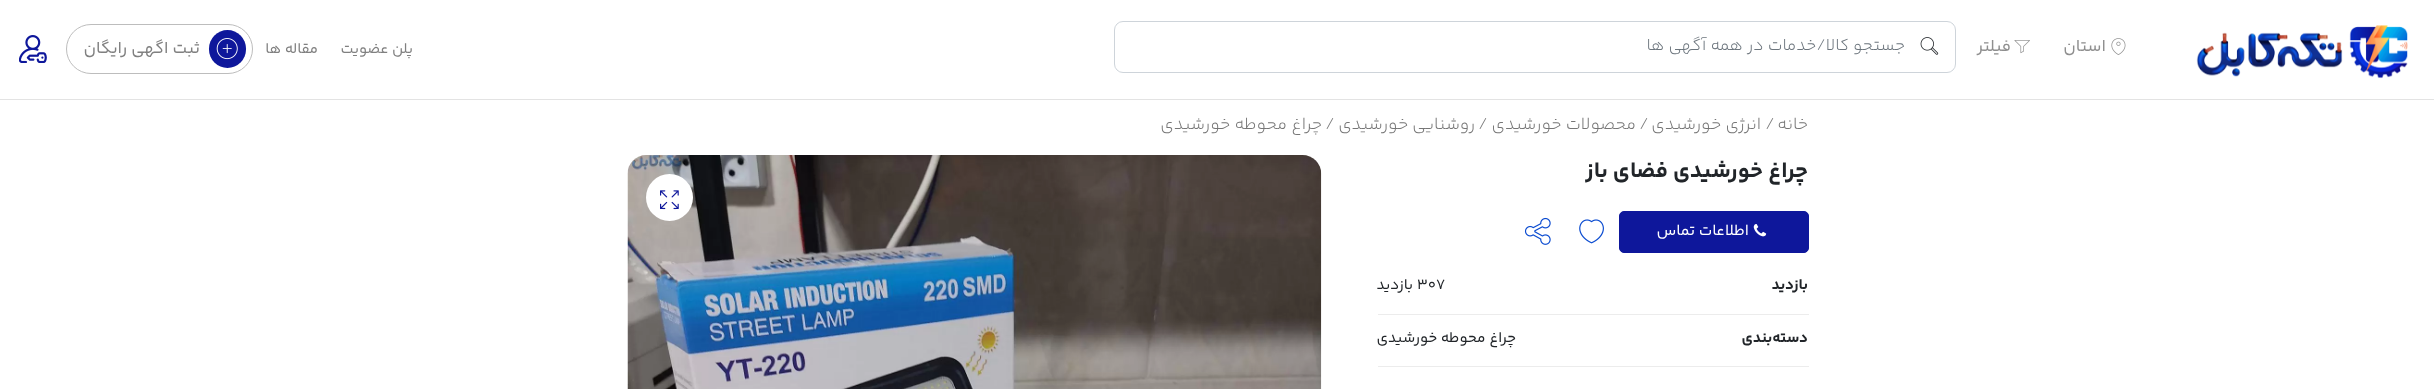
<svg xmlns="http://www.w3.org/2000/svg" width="2434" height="389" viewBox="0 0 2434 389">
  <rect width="100%" height="100%" fill="#ffffff"/>
  <rect x="0" y="99" width="2434" height="1" fill="#e3e3e3"/>
  <image x="2196" y="25" width="212" height="54" href="img1.png"/>
  <image x="2111" y="38" width="15" height="17" href="img2.png"/>
  <text x="2106" y="51" font-family="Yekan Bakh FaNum" font-size="16.9" direction="rtl" fill="#8f8f8f">استان</text>
  <image x="2014" y="40" width="16" height="14" href="img3.png"/>
  <text x="2011" y="51" font-family="Yekan Bakh FaNum" font-size="16.9" direction="rtl" fill="#8f8f8f">فیلتر</text>
  <rect x="1114.5" y="21.5" width="841" height="51" rx="8.5" fill="none" stroke="#ced4da"/>
  <image x="1920" y="37" width="19" height="18" href="img4.png"/>
  <text x="1905" y="50" font-family="Yekan Bakh FaNum" font-size="16.9" font-weight="300" direction="rtl" fill="#6c757d">جستجو کالا/خدمات در همه آگهی ها</text>
  <text x="413" y="53" font-family="Yekan Bakh FaNum" font-size="15" direction="rtl" fill="#808080">پلن عضویت</text>
  <text x="318" y="53" font-family="Yekan Bakh FaNum" font-size="15" direction="rtl" fill="#808080">مقاله ها</text>
  <rect x="66.5" y="24.5" width="186" height="49" rx="24.5" fill="none" stroke="#bdbdbd"/>
  <rect x="209" y="30" width="37" height="38" rx="18.5" fill="#0e179b"/>
  <image x="216" y="38" width="22" height="22" href="img5.png"/>
  <text x="200" y="53" font-family="Yekan Bakh FaNum" font-size="16.9" direction="rtl" fill="#808080">ثبت اگهی رایگان</text>
  <image x="19" y="35" width="28" height="28" href="img6.png"/>
  <text x="1808" y="129" font-family="Yekan Bakh FaNum" font-size="17.25" font-weight="300" direction="rtl" fill="#767676">خانه</text>
  <text x="1765" y="129" font-family="Yekan Bakh FaNum" font-size="17.25" font-weight="300" fill="#767676">/</text>
  <text x="1761" y="129" font-family="Yekan Bakh FaNum" font-size="17.25" font-weight="300" direction="rtl" fill="#767676">انرژی خورشیدی</text>
  <text x="1639" y="129" font-family="Yekan Bakh FaNum" font-size="17.25" font-weight="300" fill="#767676">/</text>
  <text x="1636" y="129" font-family="Yekan Bakh FaNum" font-size="17.25" font-weight="300" direction="rtl" fill="#767676">محصولات خورشیدی</text>
  <text x="1478" y="129" font-family="Yekan Bakh FaNum" font-size="17.25" font-weight="300" fill="#767676">/</text>
  <text x="1475" y="129" font-family="Yekan Bakh FaNum" font-size="17.25" font-weight="300" direction="rtl" fill="#767676">روشنایی خورشیدی</text>
  <text x="1325" y="129" font-family="Yekan Bakh FaNum" font-size="17.25" font-weight="300" fill="#767676">/</text>
  <text x="1322" y="129" font-family="Yekan Bakh FaNum" font-size="17.25" font-weight="300" direction="rtl" fill="#767676">چراغ محوطه خورشیدی</text>
  <text x="1808" y="177" font-family="Yekan Bakh FaNum" font-size="22.5" font-weight="bold" direction="rtl" fill="#212529">چراغ خورشیدی فضای باز</text>
  <rect x="1619.5" y="211.5" width="189" height="41" rx="4.5" fill="#0e179b" stroke="#0e179b"/>
  <image x="1753" y="224" width="14" height="13" href="img7.png"/>
  <text x="1749" y="235" font-family="Yekan Bakh FaNum" font-size="15.75" direction="rtl" fill="#ffffff">اطلاعات تماس</text>
  <image x="1579" y="219" width="25" height="25" href="img8.png"/>
  <image x="1524" y="217" width="27" height="28" href="img9.png"/>
  <text x="1808" y="289" font-family="Yekan Bakh FaNum" font-size="15" font-weight="bold" direction="rtl" fill="#212529">بازدید</text>
  <rect x="1378" y="314" width="431" height="1" fill="#ececec"/>
  <text x="1417" y="289" font-family="Yekan Bakh FaNum" font-size="15" fill="#212529">307</text>
  <text x="1413" y="289" font-family="Yekan Bakh FaNum" font-size="15" direction="rtl" fill="#212529">بازدید</text>
  <text x="1808" y="342" font-family="Yekan Bakh FaNum" font-size="15" font-weight="bold" direction="rtl" fill="#212529">دسته‌بندی</text>
  <rect x="1378" y="366" width="431" height="1" fill="#ececec"/>
  <text x="1516" y="342" font-family="Yekan Bakh FaNum" font-size="15" direction="rtl" fill="#212529">چراغ محوطه خورشیدی</text>
  <image x="627" y="155" width="695" height="234" href="img10.png"/>
  <circle cx="669.5" cy="197.5" r="23.5" fill="#ffffff"/>
  <image x="660" y="190" width="19" height="20" href="img11.png"/>
</svg>
